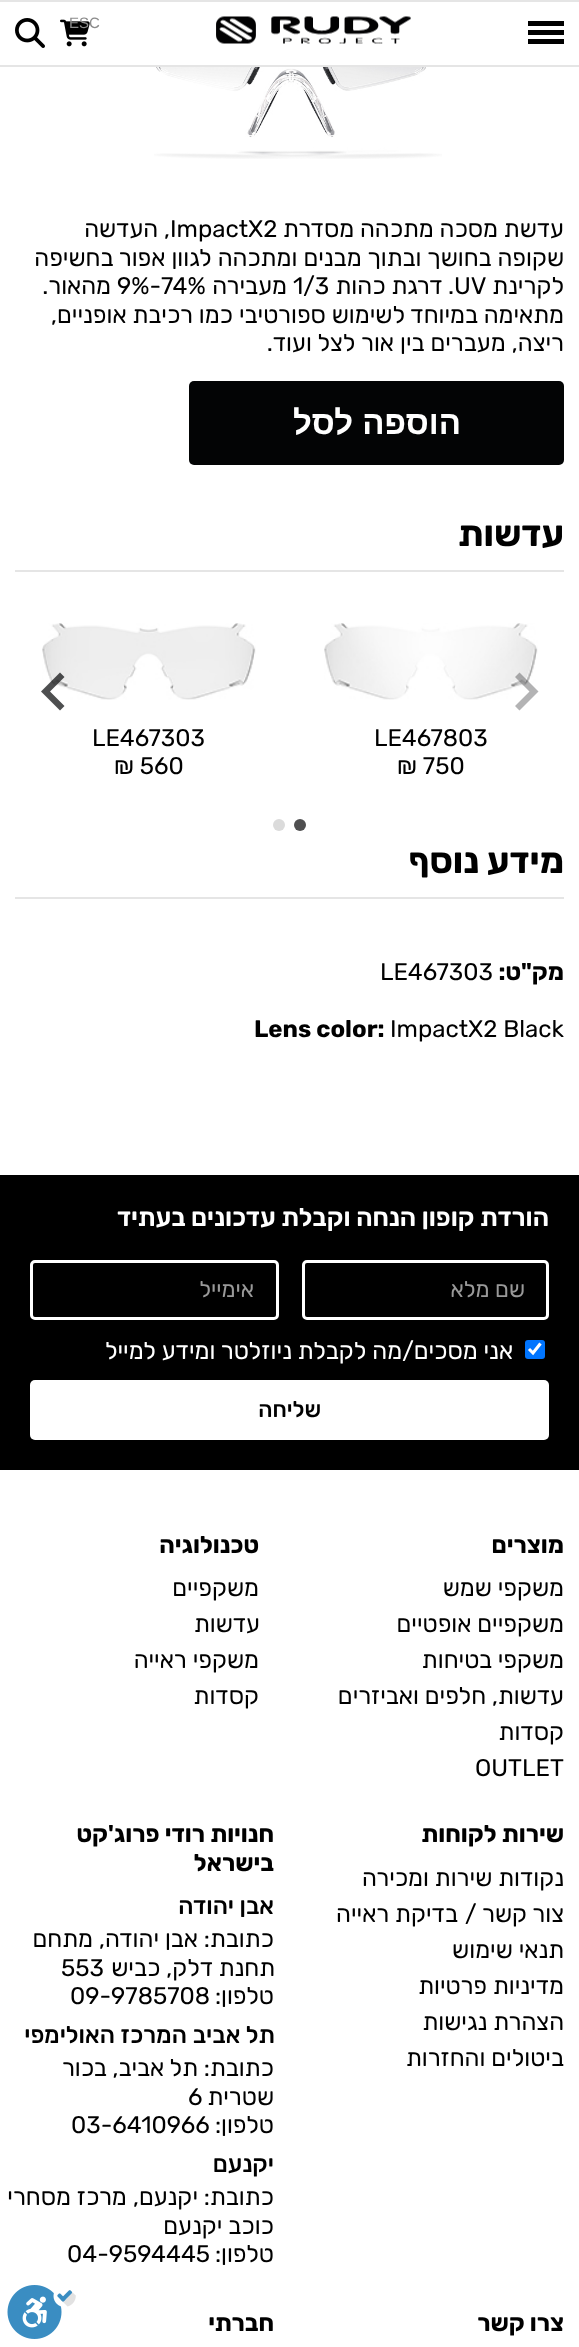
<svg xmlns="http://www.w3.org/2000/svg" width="579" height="2347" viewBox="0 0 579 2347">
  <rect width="100%" height="100%" fill="#ffffff"/>
  <rect x="0" y="0" width="579" height="2" fill="#e5e5e5"/>
  <rect x="0" y="65" width="579" height="2" fill="#e5e5e5"/>
  <rect x="528" y="21" width="36" height="5" fill="#000000"/>
  <rect x="528" y="30" width="36" height="5" fill="#000000"/>
  <rect x="528" y="39" width="36" height="5" fill="#000000"/>
  <image x="216" y="16" width="195" height="28" href="img1.png"/>
  <image x="60" y="19" width="30" height="28" href="img2.png"/>
  <image x="15" y="18" width="30" height="30" href="img3.png"/>
  <text x="69" y="28" font-family="Liberation Sans" font-size="15" fill="#8c8c8c">ESC</text>
  <image x="7" y="2285" width="69" height="54" href="img4.png"/>
  <image x="154" y="67" width="288" height="92" href="img5.png"/>
  <text x="564" y="237" font-family="Rubik" font-size="24" direction="rtl" fill="#000000">עדשת מסכה מתכהה מסדרת</text>
  <text x="170" y="237" font-family="Rubik" font-size="24" fill="#000000">ImpactX2</text>
  <text x="170" y="237" font-family="Rubik" font-size="24" direction="rtl" fill="#000000">, העדשה</text>
  <text x="564" y="266" word-spacing="0.25" font-family="Rubik" font-size="24" direction="rtl" fill="#000000">שקופה בחושך ובתוך מבנים ומתכהה לגוון אפור בחשיפה</text>
  <text x="564" y="294" font-family="Rubik" font-size="24" direction="rtl" fill="#000000">לקרינת</text>
  <text x="454" y="294" font-family="Rubik" font-size="24" fill="#000000">UV</text>
  <text x="454" y="294" font-family="Rubik" font-size="24" direction="rtl" fill="#000000">. דרגת כהות</text>
  <text x="293" y="294" font-family="Rubik" font-size="24" fill="#000000">1/3</text>
  <text x="287" y="294" font-family="Rubik" font-size="24" direction="rtl" fill="#000000">מעבירה</text>
  <text x="117" y="294" font-family="Rubik" font-size="24" fill="#000000">9%-74%</text>
  <text x="111" y="294" font-family="Rubik" font-size="24" direction="rtl" fill="#000000">מהאור.</text>
  <text x="564" y="323" font-family="Rubik" font-size="24" direction="rtl" fill="#000000">מתאימה במיוחד לשימוש ספורטיבי כמו רכיבת אופניים,</text>
  <text x="564" y="351" word-spacing="0.25" font-family="Rubik" font-size="24" direction="rtl" fill="#000000">ריצה, מעברים בין אור לצל ועוד.</text>
  <rect x="189" y="381" width="375" height="84" rx="5" fill="#030405"/>
  <text x="461" y="434" font-family="Liberation Sans" font-size="33" font-weight="bold" direction="rtl" fill="#ffffff">הוספה לסל</text>
  <rect x="15" y="570" width="549" height="2" fill="#e5e5e5"/>
  <text x="564" y="546" font-family="Rubik" font-size="36" font-weight="bold" direction="rtl" fill="#000000">עדשות</text>
  <image x="324" y="623" width="214" height="77" href="img6.png"/>
  <path d="M519.5 672.5L515 677L529.5 691.5L515 706L519.5 710.5L538.5 691.5Z" fill="#030405" fill-opacity="0.3"/>
  <image x="42" y="623" width="214" height="77" href="img7.png"/>
  <path d="M60 672.5L64.5 677L50 691.5L64.5 706L60 710.5L41 691.5Z" fill="#030405" fill-opacity="0.7"/>
  <text x="374" y="746" font-family="Rubik" font-size="24" fill="#000000">LE467803</text>
  <text x="397" y="774" font-family="Rubik" font-size="24" fill="#000000">₪ 750</text>
  <text x="92" y="746" font-family="Rubik" font-size="24" fill="#000000">LE467303</text>
  <text x="114" y="774" font-family="Rubik" font-size="24" fill="#000000">₪ 560</text>
  <circle cx="300" cy="825" r="6" fill="#4f4f50"/>
  <circle cx="279" cy="825" r="6" fill="#dbdbdb"/>
  <rect x="15" y="897" width="549" height="2" fill="#e5e5e5"/>
  <text x="564" y="873" font-family="Rubik" font-size="36" font-weight="bold" direction="rtl" fill="#000000">מידע נוסף</text>
  <text x="564" y="980" font-family="Rubik" font-size="24" font-weight="bold" direction="rtl" fill="#000000">מק"ט:</text>
  <text x="380" y="980" font-family="Rubik" font-size="24" fill="#000000">LE467303</text>
  <text x="390" y="1037" font-family="Rubik" font-size="24" fill="#000000">ImpactX2 Black</text>
  <text x="254" y="1037" font-family="Rubik" font-size="24" font-weight="bold" fill="#000000">Lens color:</text>
  <rect x="0" y="1175" width="579" height="295" fill="#000000"/>
  <text x="549" y="1226" font-family="Rubik" font-size="25.5" font-weight="600" direction="rtl" fill="#ffffff">הורדת קופון הנחה וקבלת עדכונים בעתיד</text>
  <rect x="303.5" y="1261.5" width="244" height="57" rx="3.5" fill="none" stroke="#ffffff" stroke-width="3"/>
  <text x="525" y="1297" font-family="Rubik" font-size="22.5" direction="rtl" fill="#999999">שם מלא</text>
  <rect x="31.5" y="1261.5" width="246" height="57" rx="3.5" fill="none" stroke="#ffffff" stroke-width="3"/>
  <text x="254" y="1297" font-family="Rubik" font-size="22.5" direction="rtl" fill="#999999">אימייל</text>
  <rect x="525" y="1340" width="20" height="19" rx="3" fill="#0075ff"/>
  <path d="M529 1349L533 1353L540.5 1343.5" fill="none" stroke="#ffffff" stroke-width="3.1"/>
  <text x="513" y="1359" font-family="Rubik" font-size="24" direction="rtl" fill="#ffffff">אני מסכים/מה לקבלת ניוזלטר ומידע למייל</text>
  <rect x="30" y="1380" width="519" height="60" rx="5" fill="#ffffff"/>
  <text x="321" y="1417" font-family="Rubik" font-size="22.5" font-weight="500" direction="rtl" fill="#000000">שליחה</text>
  <text x="564" y="1553" font-family="Rubik" font-size="24" font-weight="bold" direction="rtl" fill="#000000">מוצרים</text>
  <text x="564" y="1596" font-family="Rubik" font-size="24" direction="rtl" fill="#000000">משקפי שמש</text>
  <text x="564" y="1632" font-family="Rubik" font-size="24" direction="rtl" fill="#000000">משקפיים אופטיים</text>
  <text x="564" y="1668" font-family="Rubik" font-size="24" direction="rtl" fill="#000000">משקפי בטיחות</text>
  <text x="564" y="1704" font-family="Rubik" font-size="24" direction="rtl" fill="#000000">עדשות, חלפים ואביזרים</text>
  <text x="564" y="1740" font-family="Rubik" font-size="24" direction="rtl" fill="#000000">קסדות</text>
  <text x="475" y="1776" font-family="Rubik" font-size="24" fill="#000000">OUTLET</text>
  <text x="259" y="1553" font-family="Rubik" font-size="24" font-weight="bold" direction="rtl" fill="#000000">טכנולוגיה</text>
  <text x="259" y="1596" font-family="Rubik" font-size="24" direction="rtl" fill="#000000">משקפיים</text>
  <text x="260" y="1632" font-family="Rubik" font-size="24" direction="rtl" fill="#000000">עדשות</text>
  <text x="259" y="1668" font-family="Rubik" font-size="24" direction="rtl" fill="#000000">משקפי ראייה</text>
  <text x="259" y="1704" font-family="Rubik" font-size="24" direction="rtl" fill="#000000">קסדות</text>
  <text x="564" y="1842" font-family="Rubik" font-size="24" font-weight="bold" direction="rtl" fill="#000000">שירות לקוחות</text>
  <text x="564" y="1886" font-family="Rubik" font-size="24" direction="rtl" fill="#000000">נקודות שירות ומכירה</text>
  <text x="564" y="1922" font-family="Rubik" font-size="24" direction="rtl" fill="#000000">צור קשר /</text>
  <text x="458" y="1922" font-family="Rubik" font-size="24" direction="rtl" fill="#000000">בדיקת ראייה</text>
  <text x="564" y="1958" font-family="Rubik" font-size="24" direction="rtl" fill="#000000">תנאי שימוש</text>
  <text x="564" y="1994" font-family="Rubik" font-size="24" direction="rtl" fill="#000000">מדיניות פרטיות</text>
  <text x="564" y="2030" font-family="Rubik" font-size="24" direction="rtl" fill="#000000">הצהרת נגישות</text>
  <text x="564" y="2066" font-family="Rubik" font-size="24" direction="rtl" fill="#000000">ביטולים והחזרות</text>
  <text x="274" y="1842" font-family="Rubik" font-size="24" font-weight="bold" direction="rtl" fill="#000000">חנויות רודי פרוג'קט</text>
  <text x="274" y="1871" font-family="Rubik" font-size="24" font-weight="bold" direction="rtl" fill="#000000">בישראל</text>
  <text x="274" y="1914" font-family="Rubik" font-size="24" font-weight="500" direction="rtl" fill="#000000">אבן יהודה</text>
  <text x="274" y="1947" font-family="Rubik" font-size="24" direction="rtl" fill="#000000">כתובת:</text>
  <text x="198" y="1947" font-family="Rubik" font-size="24" direction="rtl" fill="#000000">אבן יהודה, מתחם</text>
  <text x="275" y="1976" font-family="Rubik" font-size="24" direction="rtl" fill="#000000">תחנת דלק, כביש</text>
  <text x="61" y="1976" font-family="Rubik" font-size="24" fill="#000000">553</text>
  <text x="274" y="2004" font-family="Rubik" font-size="24" direction="rtl" fill="#000000">טלפון:</text>
  <text x="70" y="2004" font-family="Rubik" font-size="24" fill="#000000">09-9785708</text>
  <text x="275" y="2043" word-spacing="0.5" font-family="Rubik" font-size="24" font-weight="500" direction="rtl" fill="#000000">תל אביב המרכז האולימפי</text>
  <text x="274" y="2076" font-family="Rubik" font-size="24" direction="rtl" fill="#000000">כתובת:</text>
  <text x="198" y="2076" font-family="Rubik" font-size="24" direction="rtl" fill="#000000">תל אביב, בכור</text>
  <text x="274" y="2105" font-family="Rubik" font-size="24" direction="rtl" fill="#000000">שטרית</text>
  <text x="188" y="2105" font-family="Rubik" font-size="24" fill="#000000">6</text>
  <text x="274" y="2133" font-family="Rubik" font-size="24" direction="rtl" fill="#000000">טלפון:</text>
  <text x="71" y="2133" font-family="Rubik" font-size="24" fill="#000000">03-6410966</text>
  <text x="274" y="2172" font-family="Rubik" font-size="24" font-weight="500" direction="rtl" fill="#000000">יקנעם</text>
  <text x="274" y="2205" font-family="Rubik" font-size="24" direction="rtl" fill="#000000">כתובת:</text>
  <text x="198" y="2205" word-spacing="0.25" font-family="Rubik" font-size="24" direction="rtl" fill="#000000">יקנעם, מרכז מסחרי</text>
  <text x="274" y="2234" font-family="Rubik" font-size="24" direction="rtl" fill="#000000">כוכב יקנעם</text>
  <text x="274" y="2262" font-family="Rubik" font-size="24" direction="rtl" fill="#000000">טלפון:</text>
  <text x="67" y="2262" font-family="Rubik" font-size="24" fill="#000000">04-9594445</text>
  <text x="564" y="2331" font-family="Rubik" font-size="24" font-weight="bold" direction="rtl" fill="#000000">צרו קשר</text>
  <text x="274" y="2331" font-family="Rubik" font-size="24" font-weight="bold" direction="rtl" fill="#000000">חברתי</text>
</svg>
